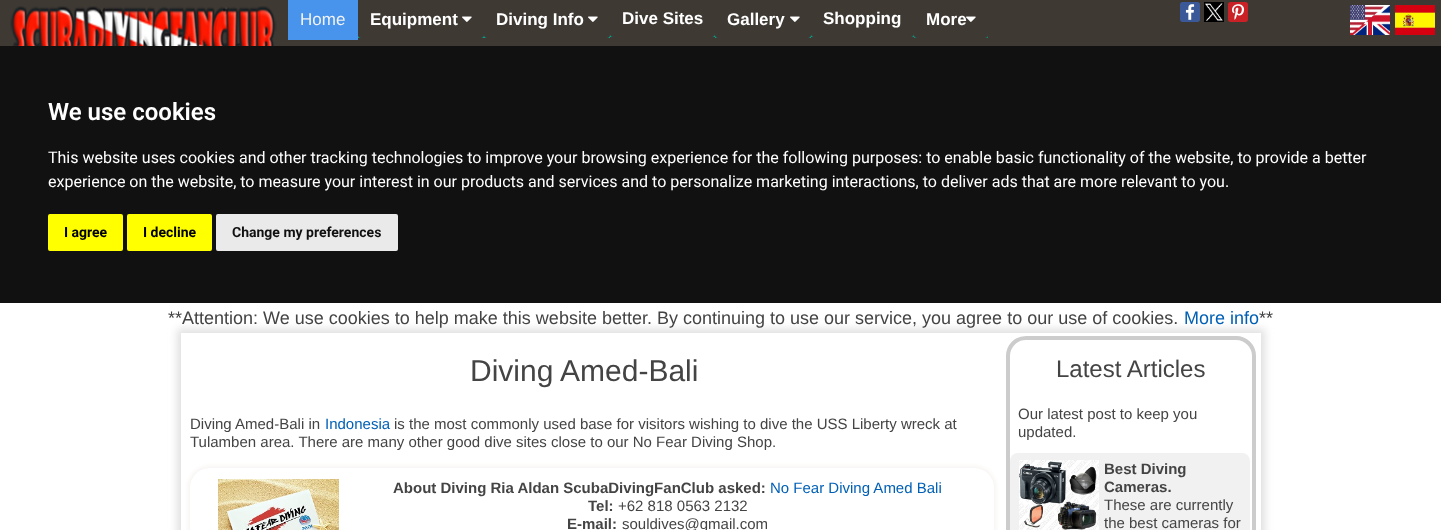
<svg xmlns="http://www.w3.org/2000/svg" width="1441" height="530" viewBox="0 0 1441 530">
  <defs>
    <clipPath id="clip1"><rect x="358" y="0" width="126" height="38"/></clipPath>
    <clipPath id="clip2"><rect x="484" y="0" width="126" height="38"/></clipPath>
    <clipPath id="clip3"><rect x="610" y="0" width="105" height="37"/></clipPath>
    <clipPath id="clip4"><rect x="715" y="0" width="96" height="38"/></clipPath>
    <clipPath id="clip5"><rect x="811" y="0" width="103" height="37"/></clipPath>
    <clipPath id="clip6"><rect x="914" y="0" width="74" height="38"/></clipPath>
    <clipPath id="clip7"><path d="M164 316H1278V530H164ZM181 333H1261V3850H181Z" clip-rule="evenodd"/></clipPath>
    <filter id="blur1" x="-50%" y="-200%" width="200%" height="500%"><feGaussianBlur stdDeviation="4"/></filter>
    <filter id="blur2" x="-50%" y="-200%" width="200%" height="500%"><feGaussianBlur stdDeviation="2"/></filter>
  </defs>
  <rect width="100%" height="100%" fill="#ffffff"/>
  <rect x="0" y="0" width="1441" height="46" fill="#3e3933"/>
  <image x="10" y="6" width="267" height="40" href="img1.png"/>
  <rect x="288" y="0" width="70" height="40" fill="#4894ec"/>
  <text x="300" y="25" font-family="Liberation Sans" font-size="17" fill="#f2f2f2">Home</text>
  <g clip-path="url(#clip1)">
    <path d="M358 35V38C358 40 359 41 361 41H481C483 41 484 40 484 38V35C484 37 483 38 481 38H361C359 38 358 37 358 35Z" fill="#00ab94"/>
  </g>
  <text x="370" y="25" font-family="Liberation Sans" font-size="17" font-weight="bold" fill="#ffffff">Equipment</text>
  <image x="462" y="16" width="10" height="6" href="img2.png"/>
  <g clip-path="url(#clip2)">
    <path d="M484 35V38C484 40 485 41 487 41H607C609 41 610 40 610 38V35C610 37 609 38 607 38H487C485 38 484 37 484 35Z" fill="#00ab94"/>
  </g>
  <text x="496" y="25" font-family="Liberation Sans" font-size="17" font-weight="bold" fill="#ffffff">Diving Info</text>
  <image x="588" y="16" width="10" height="6" href="img2.png"/>
  <g clip-path="url(#clip3)">
    <path d="M610 34V37C610 39 611 40 613 40H712C714 40 715 39 715 37V34C715 36 714 37 712 37H613C611 37 610 36 610 34Z" fill="#00ab94"/>
  </g>
  <text x="622" y="24" font-family="Liberation Sans" font-size="17" font-weight="bold" fill="#ffffff">Dive Sites</text>
  <g clip-path="url(#clip4)">
    <path d="M715 35V38C715 40 716 41 718 41H808C810 41 811 40 811 38V35C811 37 810 38 808 38H718C716 38 715 37 715 35Z" fill="#00ab94"/>
  </g>
  <text x="727" y="25" font-family="Liberation Sans" font-size="17" font-weight="bold" fill="#ffffff">Gallery</text>
  <image x="790" y="16" width="10" height="6" href="img2.png"/>
  <g clip-path="url(#clip5)">
    <path d="M811 34V37C811 39 812 40 814 40H911C913 40 914 39 914 37V34C914 36 913 37 911 37H814C812 37 811 36 811 34Z" fill="#00ab94"/>
  </g>
  <text x="823" y="24" font-family="Liberation Sans" font-size="17" font-weight="bold" fill="#ffffff">Shopping</text>
  <g clip-path="url(#clip6)">
    <path d="M914 35C914 44 919 41 928 41H974C983 41 988 44 988 35C988 37 987 38 985 38H917C915 38 914 37 914 35Z" fill="#00ab94"/>
  </g>
  <text x="926" y="25" font-family="Liberation Sans" font-size="17" font-weight="bold" fill="#ffffff">More</text>
  <image x="966" y="16" width="10" height="6" href="img2.png"/>
  <image x="1180" y="2" width="20" height="20" href="img3.png"/>
  <image x="1204" y="2" width="20" height="20" href="img4.png"/>
  <image x="1228" y="2" width="20" height="20" href="img5.png"/>
  <image x="1350" y="5" width="40" height="30" href="img6.png"/>
  <image x="1395" y="5" width="40" height="30" href="img7.png"/>
  <g clip-path="url(#clip7)">
    <rect x="177" y="329" width="1088" height="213" fill="#e0e0e0" filter="url(#blur1)"/>
  </g>
  <text x="168" y="324" font-family="Liberation Sans" font-size="18" fill="#444444">**Attention: We use cookies to help make this website better. By continuing to use our service, you agree to our use of cookies.</text>
  <text x="1184" y="324" font-family="Liberation Sans" font-size="18" fill="#0060b6">More info</text>
  <text x="1259" y="324" font-family="Liberation Sans" font-size="18" fill="#444444">**</text>
  <rect x="0" y="46" width="1441" height="257" fill="#111111"/>
  <text x="48" y="120" font-family="Roboto" font-size="24" font-weight="600" fill="#ffffff">We use cookies</text>
  <text x="48" y="163" font-family="Roboto" font-size="16" fill="#ffffff">This website uses cookies and other tracking technologies to improve your browsing experience for the following purposes: to enable basic functionality of the website, to provide a better</text>
  <text x="48" y="187" font-family="Roboto" font-size="16" fill="#ffffff">experience on the website, to measure your interest in our products and services and to personalize marketing interactions, to deliver ads that are more relevant to you.</text>
  <rect x="48" y="214" width="75" height="37" rx="2" fill="#ffff00"/>
  <text x="64" y="237" font-family="Roboto" font-size="14" font-weight="bold" fill="#000000">I agree</text>
  <rect x="127" y="214" width="85" height="37" rx="2" fill="#ffff00"/>
  <text x="143" y="237" font-family="Roboto" font-size="14" font-weight="bold" fill="#000000">I decline</text>
  <rect x="216" y="214" width="182" height="37" rx="2" fill="#eaeaea"/>
  <text x="232" y="237" font-family="Roboto" font-size="14" font-weight="bold" fill="#111111">Change my preferences</text>
  <text x="470" y="381" font-family="Liberation Sans" font-size="30" fill="#444444">Diving Amed-Bali</text>
  <text x="190" y="429" font-family="Liberation Sans" font-size="15" fill="#444444">Diving Amed-Bali in</text>
  <text x="325" y="429" font-family="Liberation Sans" font-size="15" fill="#0060b6">Indonesia</text>
  <text x="394" y="429" font-family="Liberation Sans" font-size="15" fill="#444444">is the most commonly used base for visitors wishing to dive the USS Liberty wreck at</text>
  <text x="190" y="447" font-family="Liberation Sans" font-size="15" fill="#444444">Tulamben area. There are many other good dive sites close to our No Fear Diving Shop.</text>
  <rect x="188" y="466" width="808" height="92" rx="22" fill="#f7f4f2" filter="url(#blur2)"/>
  <rect x="190" y="468" width="804" height="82" rx="20" fill="#ffffff"/>
  <image x="218" y="479" width="121" height="51" href="img8.png"/>
  <text x="393" y="493" font-family="Liberation Sans" font-size="15" font-weight="bold" fill="#444444">About Diving Ria Aldan ScubaDivingFanClub asked:</text>
  <text x="770" y="493" font-family="Liberation Sans" font-size="15" fill="#0060b6">No Fear Diving Amed Bali</text>
  <text x="588" y="511" font-family="Liberation Sans" font-size="15" font-weight="bold" fill="#444444">Tel:</text>
  <text x="618" y="511" font-family="Liberation Sans" font-size="15" fill="#444444">+62 818 0563 2132</text>
  <text x="567" y="529" font-family="Liberation Sans" font-size="15" font-weight="bold" fill="#444444">E-mail:</text>
  <text x="622" y="529" font-family="Liberation Sans" font-size="15" fill="#444444">souldives@gmail.com</text>
  <rect x="1008" y="338" width="246" height="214" rx="18" fill="none" stroke="#cccccc" stroke-width="4"/>
  <text x="1056" y="377" font-family="Liberation Sans" font-size="24" fill="#444444">Latest Articles</text>
  <text x="1018" y="419" font-family="Liberation Sans" font-size="15" fill="#444444">Our latest post to keep you</text>
  <text x="1018" y="437" font-family="Liberation Sans" font-size="15" fill="#444444">updated.</text>
  <rect x="1010" y="453" width="240" height="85" rx="8" fill="#f1f1f1"/>
  <image x="1019" y="460" width="80" height="70" href="img9.png"/>
  <text x="1104" y="474" font-family="Liberation Sans" font-size="15" font-weight="bold" fill="#444444">Best Diving</text>
  <text x="1104" y="492" font-family="Liberation Sans" font-size="15" font-weight="bold" fill="#444444">Cameras.</text>
  <text x="1104" y="510" font-family="Liberation Sans" font-size="15" fill="#444444">These are currently</text>
  <text x="1104" y="528" font-family="Liberation Sans" font-size="15" fill="#444444">the best cameras for</text>
</svg>
